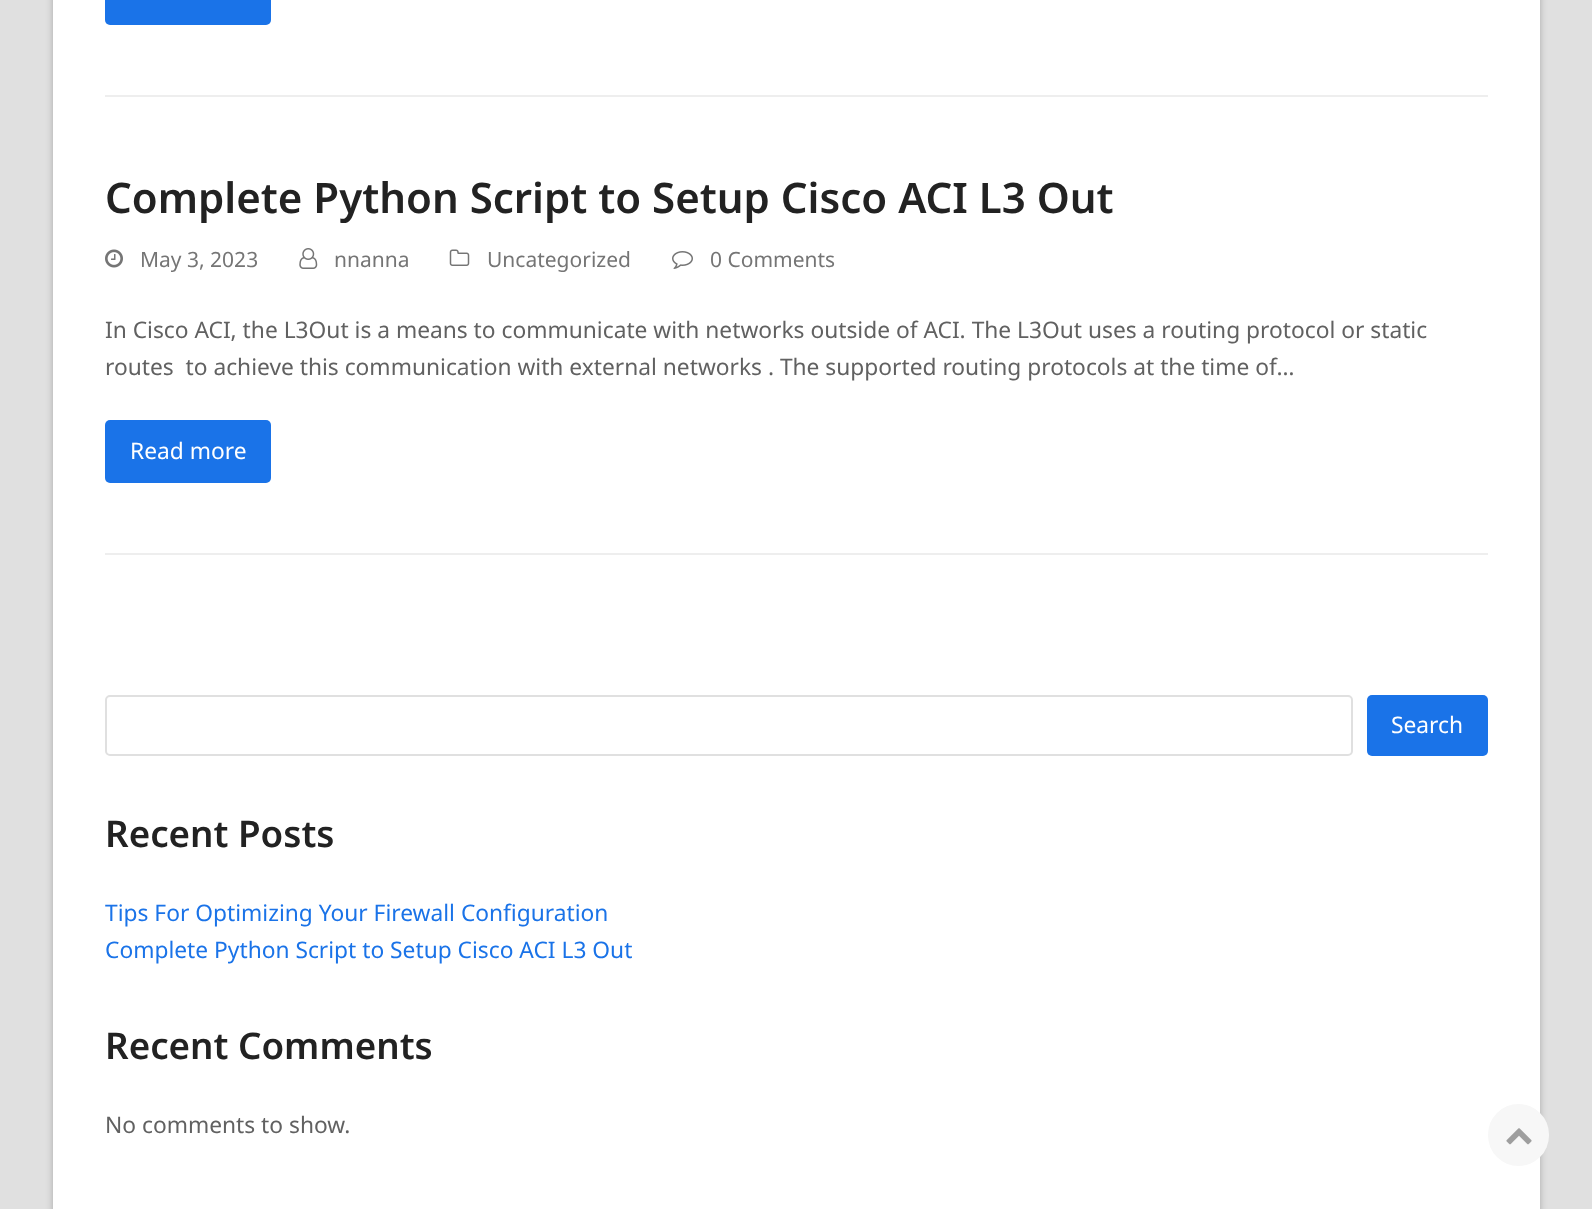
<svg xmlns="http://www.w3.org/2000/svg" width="1592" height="1209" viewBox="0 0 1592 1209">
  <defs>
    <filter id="blur1" x="-50%" y="-200%" width="200%" height="500%"><feGaussianBlur stdDeviation="3.5"/></filter>
  </defs>
  <rect width="100%" height="100%" fill="#e0e0e0"/>
  <rect x="53" y="-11" width="1487" height="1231" fill="#000000" fill-opacity="0.25" filter="url(#blur1)"/>
  <rect x="53" y="0" width="1487" height="1209" fill="#ffffff"/>
  <rect x="105" y="-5" width="166" height="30" rx="5" fill="#1a73e8"/>
  <rect x="105" y="95" width="1383" height="2" fill="#eeeeee"/>
  <text x="105" y="213" font-family="Noto Sans" font-size="42" font-weight="600" fill="#222222">Complete Python Script to Setup Cisco ACI L3 Out</text>
  <image x="105" y="249" width="18" height="19" href="img1.png"/>
  <text x="140" y="267" font-family="Noto Sans" font-size="21" fill="#757575">May 3, 2023</text>
  <image x="299" y="248" width="19" height="21" href="img2.png"/>
  <text x="334" y="267" font-family="Noto Sans" font-size="21" fill="#757575">nnanna</text>
  <image x="449" y="249" width="21" height="17" href="img3.png"/>
  <text x="487" y="267" font-family="Noto Sans" font-size="21" fill="#757575">Uncategorized</text>
  <image x="672" y="251" width="21" height="18" href="img4.png"/>
  <text x="710" y="267" font-family="Noto Sans" font-size="21" fill="#757575">0 Comments</text>
  <text x="105" y="338" font-family="Noto Sans" font-size="22.75" fill="#616161">In Cisco ACI, the L3Out is a means to communicate with networks outside of ACI. The L3Out uses a routing protocol or static</text>
  <text x="105" y="375" font-family="Noto Sans" font-size="22.75" fill="#616161" xml:space="preserve">routes  to achieve this communication with external networks . The supported routing protocols at the time of…</text>
  <rect x="105" y="420" width="166" height="63" rx="5" fill="#1a73e8"/>
  <text x="130" y="459" font-family="Noto Sans" font-size="22.75" fill="#ffffff">Read more</text>
  <rect x="105" y="553" width="1383" height="2" fill="#eeeeee"/>
  <rect x="106" y="696" width="1246" height="59" rx="4" fill="none" stroke="#e0e0e0" stroke-width="2"/>
  <rect x="1367" y="695" width="121" height="61" rx="5" fill="#1a73e8"/>
  <text x="1391" y="733" font-family="Noto Sans" font-size="22.75" fill="#ffffff">Search</text>
  <text x="105" y="847" font-family="Noto Sans" font-size="36.75" font-weight="600" fill="#222222">Recent Posts</text>
  <text x="105" y="921" font-family="Noto Sans" font-size="22.75" fill="#1a73e8">Tips For Optimizing Your Firewall Configuration</text>
  <text x="105" y="958" font-family="Noto Sans" font-size="22.75" fill="#1a73e8">Complete Python Script to Setup Cisco ACI L3 Out</text>
  <text x="105" y="1059" font-family="Noto Sans" font-size="36.75" font-weight="600" fill="#222222">Recent Comments</text>
  <text x="105" y="1133" font-family="Noto Sans" font-size="22.75" fill="#616161">No comments to show.</text>
  <rect x="1488" y="1104" width="61" height="62" rx="30.5" fill="#f7f7f7"/>
  <image x="1506" y="1128" width="26" height="17" href="img5.png"/>
</svg>
